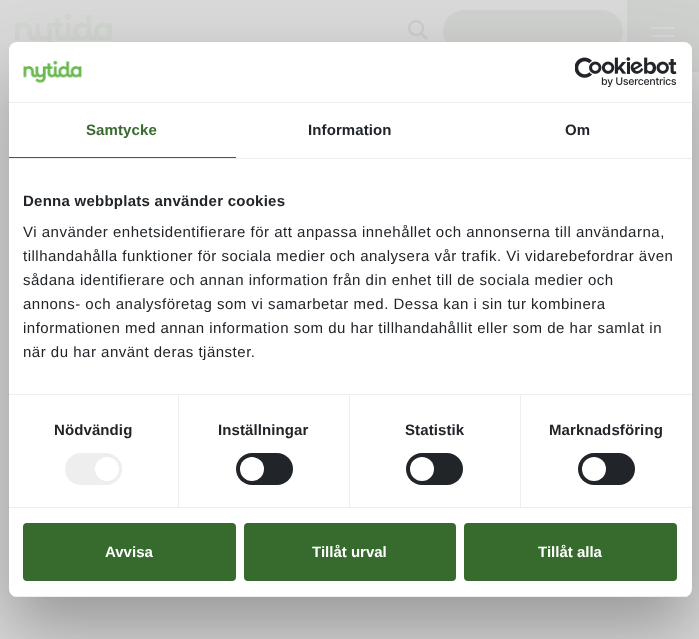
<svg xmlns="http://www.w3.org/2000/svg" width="699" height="639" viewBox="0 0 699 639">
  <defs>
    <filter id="blur1" x="-50%" y="-200%" width="200%" height="500%"><feGaussianBlur stdDeviation="34"/></filter>
    <clipPath id="clip1"><rect x="9" y="42" width="683" height="555" rx="8"/></clipPath>
  </defs>
  <rect width="100%" height="100%" fill="#d9d9d9"/>
  <image x="15" y="14" width="97" height="28" href="img1.png"/>
  <image x="408" y="20" width="20" height="20" href="img2.png"/>
  <rect x="443" y="10" width="180" height="43" rx="21.5" fill="#cfd1ce"/>
  <rect x="627" y="0" width="72" height="72" fill="#cfd1ce"/>
  <image x="651" y="27" width="24" height="10" href="img3.png"/>
  <rect x="9" y="74" width="683" height="555" rx="8" fill="#000000" fill-opacity="0.3" filter="url(#blur1)"/>
  <rect x="9" y="42" width="683" height="555" rx="8" fill="#ffffff"/>
  <rect x="9" y="102" width="683" height="1" fill="#eeeeee"/>
  <image x="23" y="60" width="59" height="23" href="img4.png"/>
  <image x="575" y="57" width="102" height="30" href="img5.png"/>
  <rect x="9" y="158" width="683" height="1" fill="#eeeeee"/>
  <rect x="9" y="157" width="227" height="1" fill="#376b2d"/>
  <text x="86" y="135" font-family="Liberation Sans" font-size="15" font-weight="bold" letter-spacing="0.1" fill="#376b2d">Samtycke</text>
  <text x="308" y="135" font-family="Liberation Sans" font-size="15" font-weight="bold" letter-spacing="0.1" fill="#212529">Information</text>
  <text x="565" y="135" font-family="Liberation Sans" font-size="15" font-weight="bold" letter-spacing="0.1" fill="#212529">Om</text>
  <rect x="9" y="394" width="683" height="1" fill="#eeeeee"/>
  <text x="23" y="206" font-family="Liberation Sans" font-size="15" font-weight="bold" letter-spacing="0.25" fill="#212529">Denna webbplats använder cookies</text>
  <text x="23" y="237" font-family="Liberation Sans" font-size="15" letter-spacing="0.5" fill="#212529">Vi använder enhetsidentifierare för att anpassa innehållet och annonserna till användarna,</text>
  <text x="23" y="261" font-family="Liberation Sans" font-size="15" letter-spacing="0.5" fill="#212529">tillhandahålla funktioner för sociala medier och analysera vår trafik. Vi vidarebefordrar även</text>
  <text x="23" y="285" font-family="Liberation Sans" font-size="15" letter-spacing="0.5" fill="#212529">sådana identifierare och annan information från din enhet till de sociala medier och</text>
  <text x="23" y="309" font-family="Liberation Sans" font-size="15" letter-spacing="0.5" fill="#212529">annons- och analysföretag som vi samarbetar med. Dessa kan i sin tur kombinera</text>
  <text x="23" y="333" font-family="Liberation Sans" font-size="15" letter-spacing="0.5" fill="#212529">informationen med annan information som du har tillhandahållit eller som de har samlat in</text>
  <text x="23" y="357" font-family="Liberation Sans" font-size="15" letter-spacing="0.5" fill="#212529">när du har använt deras tjänster.</text>
  <rect x="9" y="507" width="683" height="1" fill="#eeeeee"/>
  <rect x="178" y="395" width="1" height="112" fill="#eeeeee"/>
  <text x="54" y="435" font-family="Liberation Sans" font-size="15" font-weight="bold" letter-spacing="0.1" fill="#212529">Nödvändig</text>
  <rect x="65" y="453" width="57" height="32" rx="16" fill="#eeeeee"/>
  <circle cx="107" cy="469" r="12" fill="#ffffff"/>
  <rect x="349" y="395" width="1" height="112" fill="#eeeeee"/>
  <text x="218" y="435" font-family="Liberation Sans" font-size="15" font-weight="bold" letter-spacing="0.1" fill="#212529">Inställningar</text>
  <rect x="236" y="453" width="57" height="32" rx="16" fill="#212529"/>
  <circle cx="252" cy="469" r="12" fill="#ffffff"/>
  <rect x="520" y="395" width="1" height="112" fill="#eeeeee"/>
  <text x="405" y="435" font-family="Liberation Sans" font-size="15" font-weight="bold" letter-spacing="0.1" fill="#212529">Statistik</text>
  <rect x="406" y="453" width="57" height="32" rx="16" fill="#212529"/>
  <circle cx="422" cy="469" r="12" fill="#ffffff"/>
  <text x="549" y="435" font-family="Liberation Sans" font-size="15" font-weight="bold" letter-spacing="0.1" fill="#212529">Marknadsföring</text>
  <rect x="578" y="453" width="57" height="32" rx="16" fill="#212529"/>
  <circle cx="594" cy="469" r="12" fill="#ffffff"/>
  <g clip-path="url(#clip1)">
    <rect x="9" y="596" width="683" height="1" fill="#eeeeee"/>
  </g>
  <rect x="24" y="524" width="211" height="56" rx="3" fill="#376b2d" stroke="#376b2d" stroke-width="2"/>
  <text x="105" y="557" font-family="Liberation Sans" font-size="15" font-weight="bold" fill="#ffffff">Avvisa</text>
  <rect x="245" y="524" width="210" height="56" rx="3" fill="#376b2d" stroke="#376b2d" stroke-width="2"/>
  <text x="312" y="557" font-family="Liberation Sans" font-size="15" font-weight="bold" fill="#ffffff">Tillåt urval</text>
  <rect x="465" y="524" width="211" height="56" rx="3" fill="#376b2d" stroke="#376b2d" stroke-width="2"/>
  <text x="538" y="557" font-family="Liberation Sans" font-size="15" font-weight="bold" fill="#ffffff">Tillåt alla</text>
</svg>
